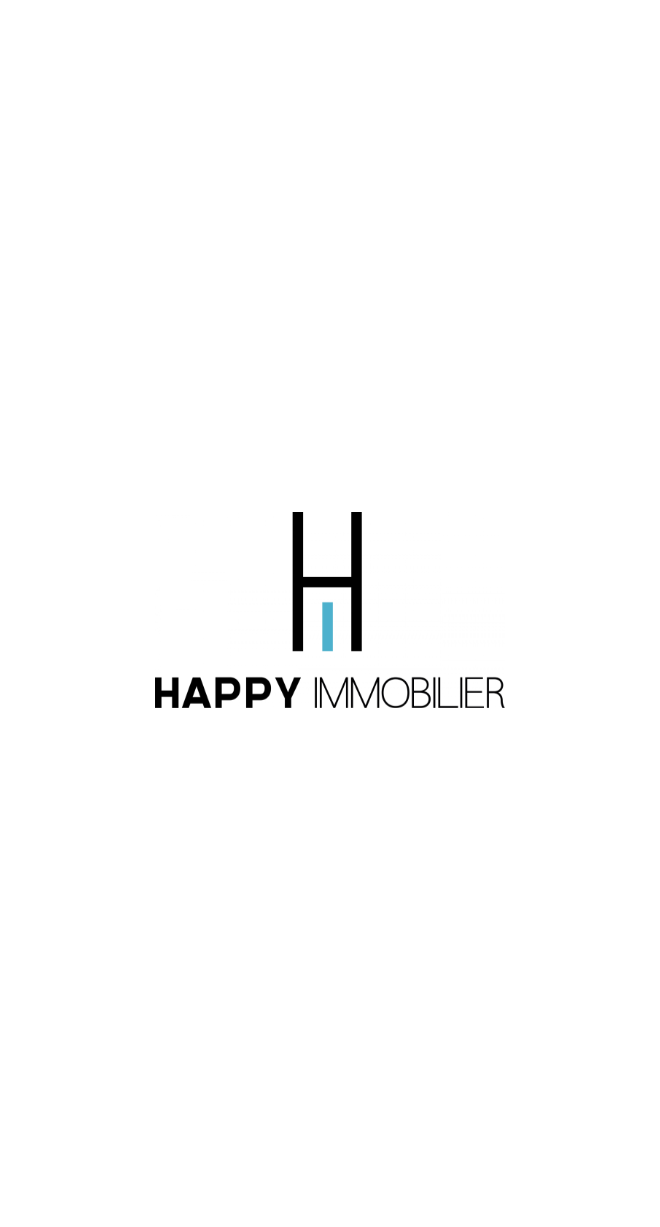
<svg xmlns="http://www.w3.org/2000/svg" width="660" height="1227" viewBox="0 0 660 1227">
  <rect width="100%" height="100%" fill="#ffffff"/>
  <image x="155" y="512" width="350" height="196" href="img1.png"/>
</svg>
